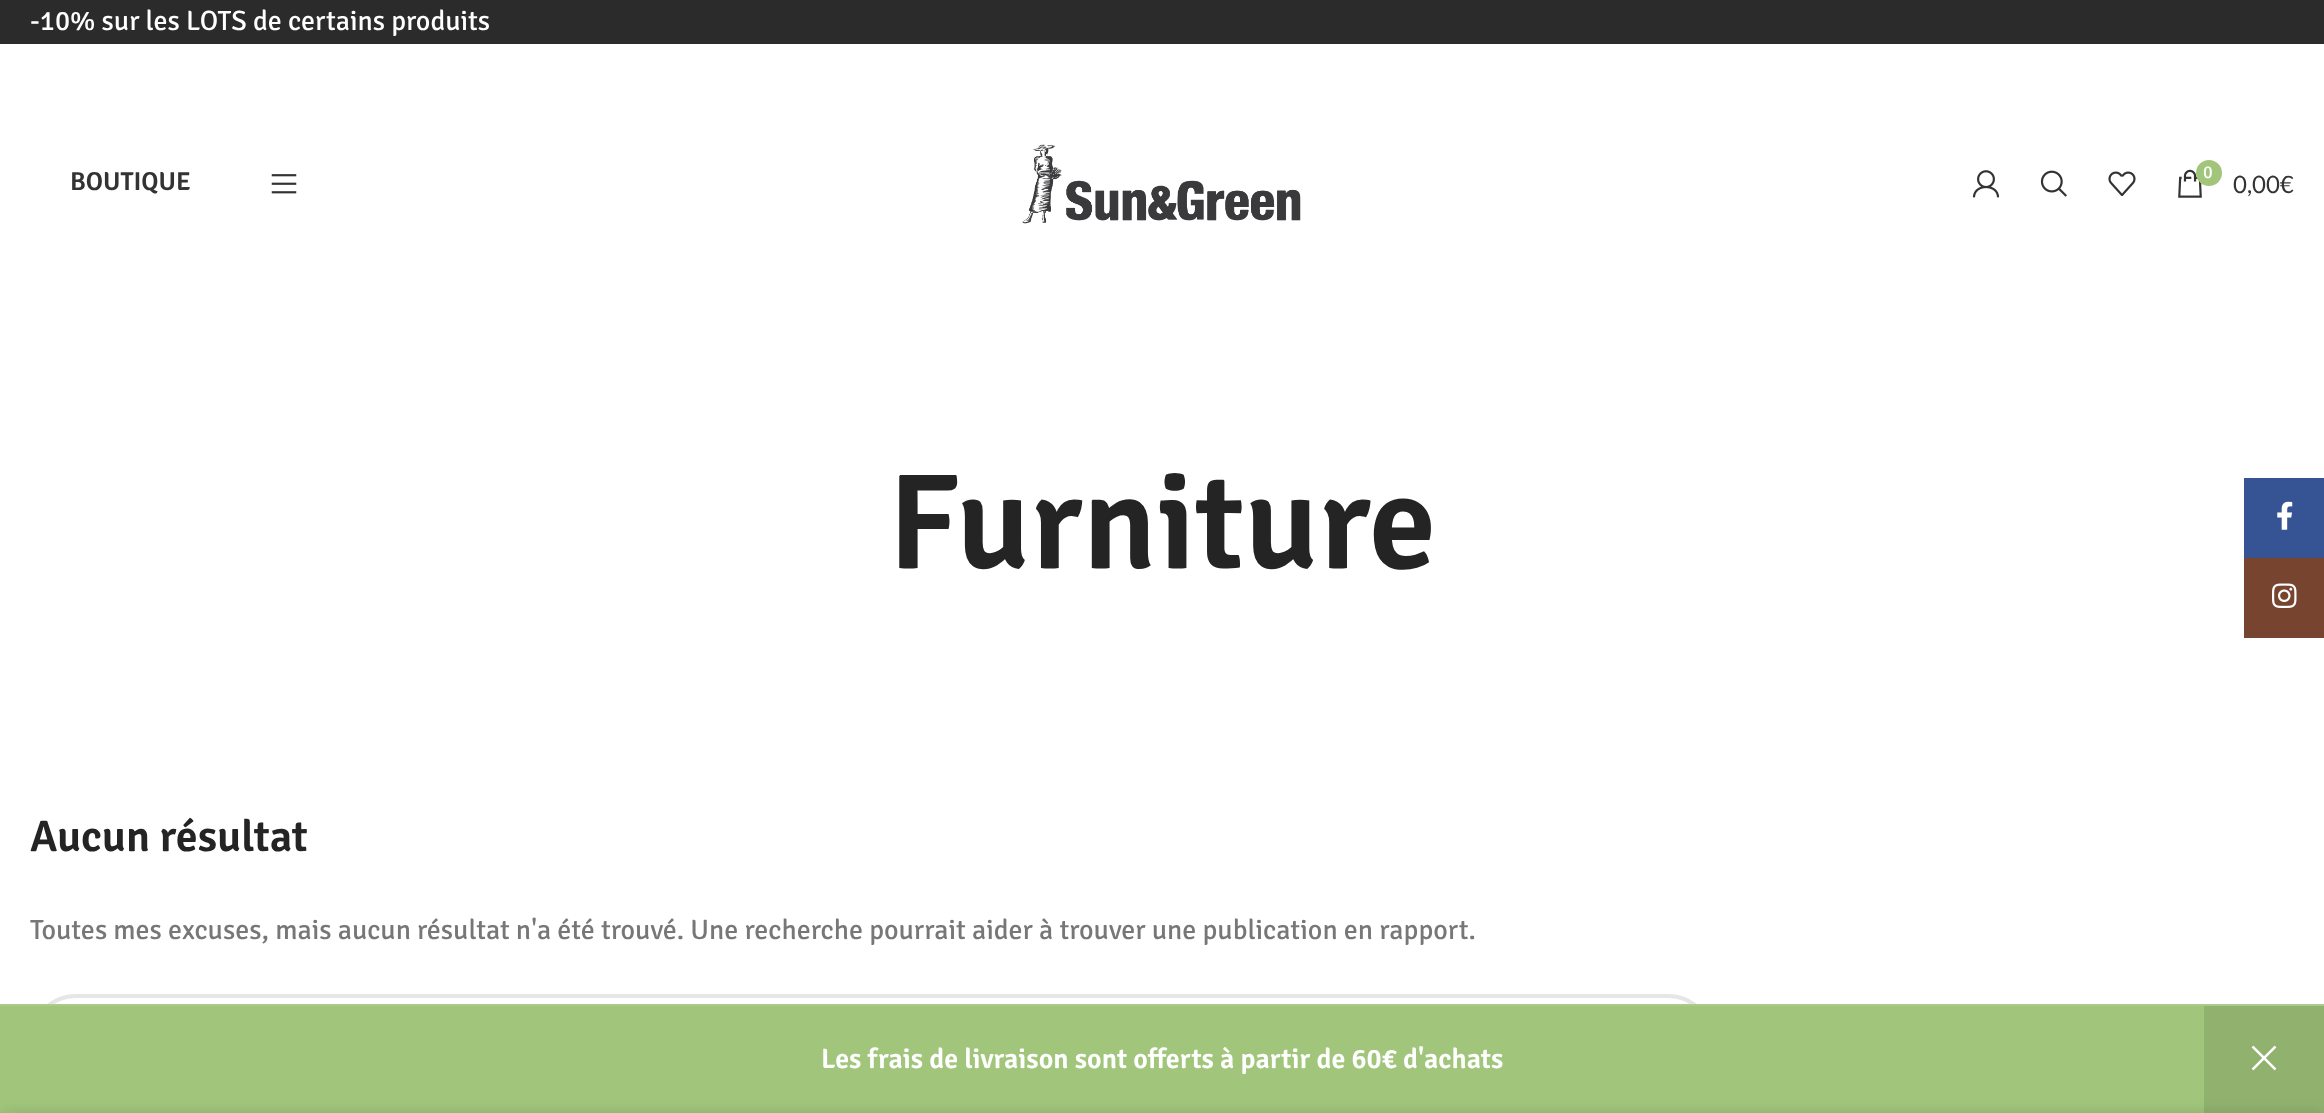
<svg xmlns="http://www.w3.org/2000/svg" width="2324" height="1113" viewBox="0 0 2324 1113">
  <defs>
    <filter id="blur1" x="-50%" y="-200%" width="200%" height="500%"><feGaussianBlur stdDeviation="9"/></filter>
  </defs>
  <rect width="100%" height="100%" fill="#ffffff"/>
  <rect x="0" y="0" width="2324" height="44" fill="#2b2b2b"/>
  <text x="30" y="30" font-family="Signika" font-size="28" fill="#ffffff">-10% sur les LOTS de certains produits</text>
  <text x="70" y="190" font-family="Signika" font-size="26" font-weight="600" fill="#333333">BOUTIQUE</text>
  <image x="271" y="174" width="26" height="20" href="img1.png"/>
  <image x="1022" y="144" width="279" height="80" href="img2.png"/>
  <image x="1972" y="170" width="28" height="28" href="img3.png"/>
  <image x="2040" y="170" width="27" height="27" href="img4.png"/>
  <image x="2108" y="171" width="28" height="25" href="img5.png"/>
  <image x="2178" y="169" width="24" height="29" href="img6.png"/>
  <circle cx="2209" cy="173" r="13" fill="#a1c67b"/>
  <text x="2203" y="178" font-family="Signika" font-size="18" fill="#ffffff">0</text>
  <text x="2233" y="193" font-family="Lato" font-size="24" fill="#333333">0,00€</text>
  <text x="888" y="568" font-family="Signika" font-size="136" font-weight="600" fill="#242424">Furniture</text>
  <text x="30" y="851" font-family="Signika" font-size="44" font-weight="600" fill="#242424">Aucun résultat</text>
  <text x="30" y="939" font-family="Signika" font-size="28" fill="#777777">Toutes mes excuses, mais aucun résultat n'a été trouvé. Une recherche pourrait aider à trouver une publication en rapport.</text>
  <rect x="32" y="996" width="1680" height="88" rx="44" fill="none" stroke="#e6e6e6" stroke-width="4"/>
  <rect x="2244" y="478" width="80" height="80" fill="#365493"/>
  <image x="2277" y="501" width="16" height="29" href="img7.png"/>
  <rect x="2244" y="558" width="80" height="80" fill="#774430"/>
  <image x="2272" y="583" width="25" height="25" href="img8.png"/>
  <rect x="0" y="1006" width="2204" height="107" fill="#a1c67b"/>
  <rect x="0" y="1004" width="2324" height="2" fill="#aacc88"/>
  <text x="821" y="1068" font-family="Signika" font-size="28" font-weight="600" fill="#ffffff">Les frais de livraison sont offerts à partir de 60€ d'achats</text>
  <rect x="2204" y="1006" width="120" height="107" fill="#91b26f"/>
  <image x="2251" y="1045" width="26" height="26" href="img9.png"/>
  <rect x="0" y="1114" width="2324" height="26" fill="#000000" fill-opacity="0.14" filter="url(#blur1)"/>
</svg>
